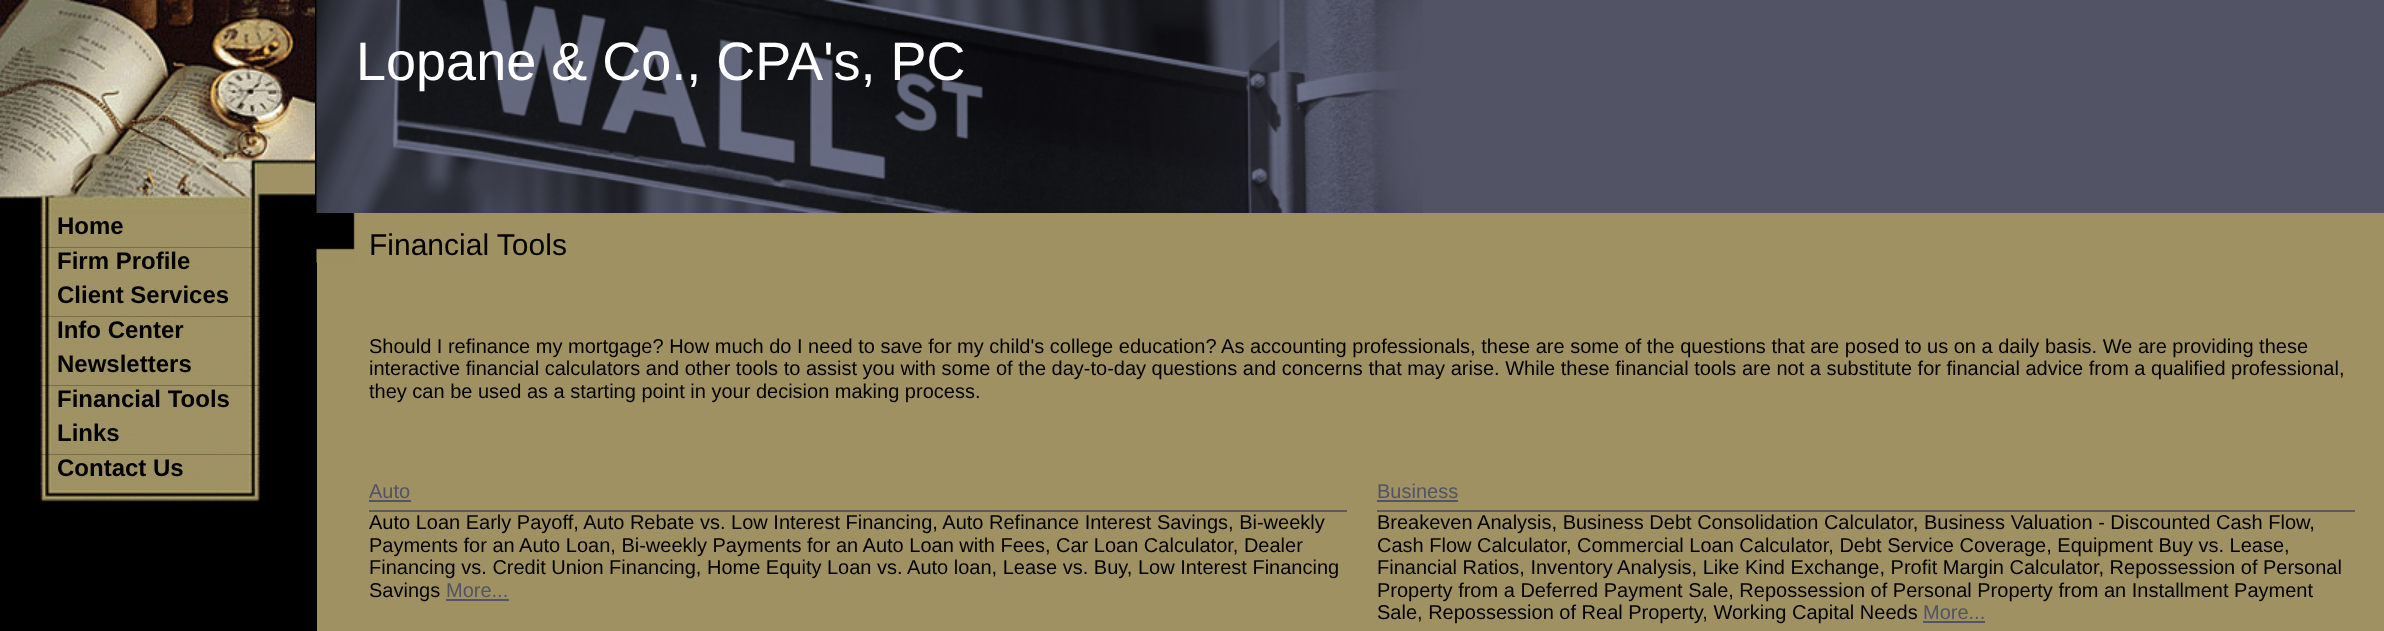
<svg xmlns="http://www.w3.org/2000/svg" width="2384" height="631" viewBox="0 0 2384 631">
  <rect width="100%" height="100%" fill="#9f9162"/>
  <rect x="0" y="0" width="317" height="631" fill="#000000"/>
  <rect x="1423" y="0" width="961" height="213" fill="#525365"/>
  <image x="316" y="0" width="1107" height="213" href="img1.png"/>
  <text x="356" y="80" font-family="Liberation Sans" font-size="54" fill="#ffffff">Lopane &amp; Co., CPA's, PC</text>
  <image x="0" y="0" width="315" height="216" href="img2.png"/>
  <image x="40" y="213" width="221" height="35" href="img3.png"/>
  <text x="57" y="234" font-family="Liberation Sans" font-size="24" font-weight="bold" fill="#000000">Home</text>
  <image x="40" y="247" width="220" height="35" href="img4.png"/>
  <text x="57" y="269" font-family="Liberation Sans" font-size="24" font-weight="bold" fill="#000000">Firm Profile</text>
  <image x="40" y="282" width="220" height="35" href="img5.png"/>
  <text x="57" y="303" font-family="Liberation Sans" font-size="24" font-weight="bold" fill="#000000">Client Services</text>
  <image x="40" y="316" width="220" height="35" href="img6.png"/>
  <text x="57" y="338" font-family="Liberation Sans" font-size="24" font-weight="bold" fill="#000000">Info Center</text>
  <image x="40" y="351" width="220" height="35" href="img7.png"/>
  <text x="57" y="372" font-family="Liberation Sans" font-size="24" font-weight="bold" fill="#000000">Newsletters</text>
  <image x="40" y="385" width="220" height="35" href="img8.png"/>
  <text x="57" y="407" font-family="Liberation Sans" font-size="24" font-weight="bold" fill="#000000">Financial Tools</text>
  <image x="40" y="420" width="220" height="35" href="img9.png"/>
  <text x="57" y="441" font-family="Liberation Sans" font-size="24" font-weight="bold" fill="#000000">Links</text>
  <image x="40" y="454" width="220" height="35" href="img10.png"/>
  <text x="57" y="476" font-family="Liberation Sans" font-size="24" font-weight="bold" fill="#000000">Contact Us</text>
  <image x="40" y="489" width="220" height="13" href="img11.png"/>
  <image x="316" y="213" width="39" height="50" href="img12.png"/>
  <text x="369" y="255" font-family="Liberation Sans" font-size="30" fill="#000000">Financial Tools</text>
  <text x="369" y="353" font-family="Liberation Sans" font-size="20" fill="#000000">Should I refinance my mortgage? How much do I need to save for my child's college education? As accounting professionals, these are some of the questions that are posed to us on a daily basis. We are providing these</text>
  <text x="369" y="375" font-family="Liberation Sans" font-size="20" fill="#000000">interactive financial calculators and other tools to assist you with some of the day-to-day questions and concerns that may arise. While these financial tools are not a substitute for financial advice from a qualified professional,</text>
  <text x="369" y="398" font-family="Liberation Sans" font-size="20" fill="#000000">they can be used as a starting point in your decision making process.</text>
  <rect x="369" y="510" width="978" height="2" fill="#5a5a5a"/>
  <text x="369" y="498" font-family="Liberation Sans" font-size="20" fill="#525365">Auto</text>
  <rect x="369" y="500" width="42" height="2" fill="#525365"/>
  <text x="369" y="529" font-family="Liberation Sans" font-size="20" fill="#000000">Auto Loan Early Payoff, Auto Rebate vs. Low Interest Financing, Auto Refinance Interest Savings, Bi-weekly</text>
  <text x="369" y="552" font-family="Liberation Sans" font-size="20" fill="#000000">Payments for an Auto Loan, Bi-weekly Payments for an Auto Loan with Fees, Car Loan Calculator, Dealer</text>
  <text x="369" y="574" font-family="Liberation Sans" font-size="20" fill="#000000">Financing vs. Credit Union Financing, Home Equity Loan vs. Auto loan, Lease vs. Buy, Low Interest Financing</text>
  <text x="369" y="597" font-family="Liberation Sans" font-size="20" fill="#000000">Savings</text>
  <text x="446" y="597" font-family="Liberation Sans" font-size="20" fill="#525365">More...</text>
  <rect x="446" y="599" width="63" height="2" fill="#525365"/>
  <rect x="1377" y="510" width="978" height="2" fill="#5a5a5a"/>
  <text x="1377" y="498" font-family="Liberation Sans" font-size="20" fill="#525365">Business</text>
  <rect x="1377" y="500" width="81" height="2" fill="#525365"/>
  <text x="1377" y="529" font-family="Liberation Sans" font-size="20" fill="#000000">Breakeven Analysis, Business Debt Consolidation Calculator, Business Valuation - Discounted Cash Flow,</text>
  <text x="1377" y="552" font-family="Liberation Sans" font-size="20" fill="#000000">Cash Flow Calculator, Commercial Loan Calculator, Debt Service Coverage, Equipment Buy vs. Lease,</text>
  <text x="1377" y="574" font-family="Liberation Sans" font-size="20" fill="#000000">Financial Ratios, Inventory Analysis, Like Kind Exchange, Profit Margin Calculator, Repossession of Personal</text>
  <text x="1377" y="597" font-family="Liberation Sans" font-size="20" fill="#000000">Property from a Deferred Payment Sale, Repossession of Personal Property from an Installment Payment</text>
  <text x="1377" y="619" font-family="Liberation Sans" font-size="20" fill="#000000">Sale, Repossession of Real Property, Working Capital Needs</text>
  <text x="1923" y="619" font-family="Liberation Sans" font-size="20" fill="#525365">More...</text>
  <rect x="1923" y="621" width="62" height="2" fill="#525365"/>
</svg>
